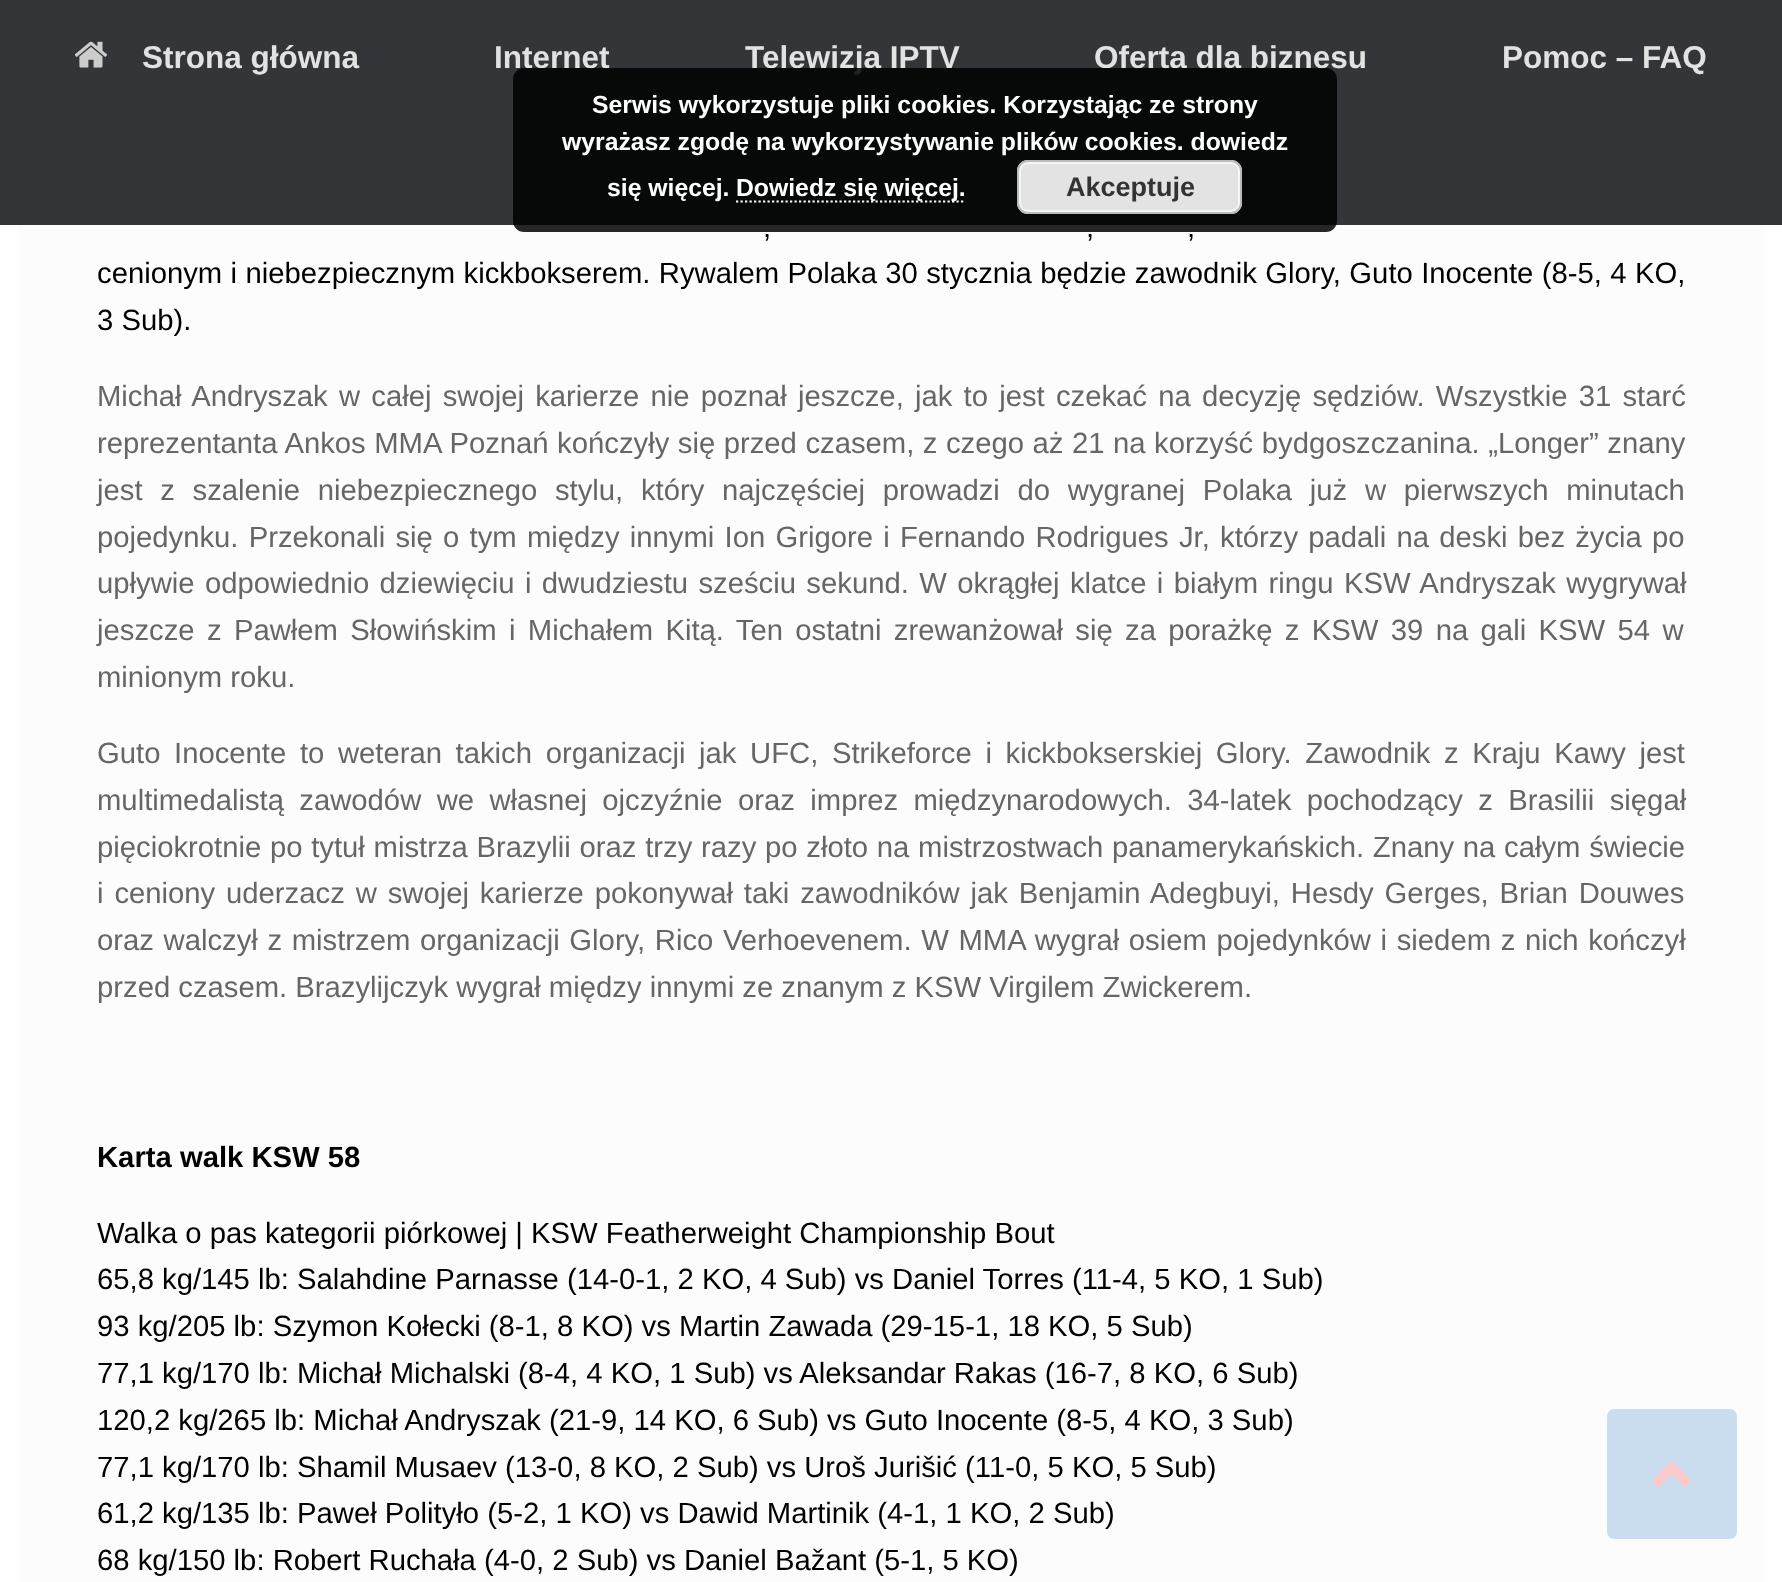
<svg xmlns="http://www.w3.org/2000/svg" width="1782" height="1582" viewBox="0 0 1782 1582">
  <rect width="100%" height="100%" fill="#ffffff"/>
  <rect x="0" y="0" width="1782" height="225" fill="#343538"/>
  <image x="74" y="41" width="34" height="27" href="img1.png"/>
  <text x="142" y="68" font-family="Liberation Sans" font-size="31.5" font-weight="bold" fill="#e2e2e2">Strona główna</text>
  <text x="494" y="68" font-family="Liberation Sans" font-size="31.5" font-weight="bold" fill="#e2e2e2">Internet</text>
  <text x="745" y="68" font-family="Liberation Sans" font-size="31.5" font-weight="bold" fill="#e2e2e2">Telewizja IPTV</text>
  <text x="1094" y="68" font-family="Liberation Sans" font-size="31.5" font-weight="bold" fill="#e2e2e2">Oferta dla biznesu</text>
  <text x="1502" y="68" font-family="Liberation Sans" font-size="31.5" font-weight="bold" fill="#e2e2e2">Pomoc – FAQ</text>
  <rect x="18" y="225" width="1746" height="1357" fill="#fcfcfc"/>
  <text x="763" y="237" word-spacing="1" font-family="Liberation Sans" font-size="29.25" fill="#000000">,</text>
  <text x="1086" y="237" word-spacing="1" font-family="Liberation Sans" font-size="29.25" fill="#000000">,</text>
  <text x="1187" y="237" word-spacing="1" font-family="Liberation Sans" font-size="29.25" fill="#000000">,</text>
  <text x="97" y="283" word-spacing="0.25" font-family="Liberation Sans" font-size="29.25" fill="#000000">cenionym i niebezpiecznym kickbokserem. Rywalem Polaka 30 stycznia będzie zawodnik Glory, Guto Inocente (8-5, 4 KO,</text>
  <text x="97" y="330" font-family="Liberation Sans" font-size="29.25" fill="#000000">3 Sub).</text>
  <text x="97" y="406" word-spacing="3.1" font-family="Liberation Sans" font-size="29.25" fill="#666666">Michał Andryszak w całej swojej karierze nie poznał jeszcze, jak to jest czekać na decyzję sędziów. Wszystkie 31 starć</text>
  <text x="97" y="453" word-spacing="0.4" font-family="Liberation Sans" font-size="29.25" fill="#666666">reprezentanta Ankos MMA Poznań kończyły się przed czasem, z czego aż 21 na korzyść bydgoszczanina. „Longer” znany</text>
  <text x="97" y="500" word-spacing="9.6" font-family="Liberation Sans" font-size="29.25" fill="#666666">jest z szalenie niebezpiecznego stylu, który najczęściej prowadzi do wygranej Polaka już w pierwszych minutach</text>
  <text x="97" y="547" word-spacing="2.1" font-family="Liberation Sans" font-size="29.25" fill="#666666">pojedynku. Przekonali się o tym między innymi Ion Grigore i Fernando Rodrigues Jr, którzy padali na deski bez życia po</text>
  <text x="97" y="593" word-spacing="2.25" font-family="Liberation Sans" font-size="29.25" fill="#666666">upływie odpowiednio dziewięciu i dwudziestu sześciu sekund. W okrągłej klatce i białym ringu KSW Andryszak wygrywał</text>
  <text x="97" y="640" word-spacing="4.25" font-family="Liberation Sans" font-size="29.25" fill="#666666">jeszcze z Pawłem Słowińskim i Michałem Kitą. Ten ostatni zrewanżował się za porażkę z KSW 39 na gali KSW 54 w</text>
  <text x="97" y="687" font-family="Liberation Sans" font-size="29.25" fill="#666666">minionym roku.</text>
  <text x="97" y="763" word-spacing="5.5" font-family="Liberation Sans" font-size="29.25" fill="#666666">Guto Inocente to weteran takich organizacji jak UFC, Strikeforce i kickbokserskiej Glory. Zawodnik z Kraju Kawy jest</text>
  <text x="97" y="810" word-spacing="7.25" font-family="Liberation Sans" font-size="29.25" fill="#666666">multimedalistą zawodów we własnej ojczyźnie oraz imprez międzynarodowych. 34-latek pochodzący z Brasilii sięgał</text>
  <text x="97" y="857" word-spacing="0.6" font-family="Liberation Sans" font-size="29.25" fill="#666666">pięciokrotnie po tytuł mistrza Brazylii oraz trzy razy po złoto na mistrzostwach panamerykańskich. Znany na całym świecie</text>
  <text x="97" y="903" word-spacing="2.75" font-family="Liberation Sans" font-size="29.25" fill="#666666">i ceniony uderzacz w swojej karierze pokonywał taki zawodników jak Benjamin Adegbuyi, Hesdy Gerges, Brian Douwes</text>
  <text x="97" y="950" word-spacing="1.5" font-family="Liberation Sans" font-size="29.25" fill="#666666">oraz walczył z mistrzem organizacji Glory, Rico Verhoevenem. W MMA wygrał osiem pojedynków i siedem z nich kończył</text>
  <text x="97" y="997" font-family="Liberation Sans" font-size="29.25" fill="#666666">przed czasem. Brazylijczyk wygrał między innymi ze znanym z KSW Virgilem Zwickerem.</text>
  <text x="97" y="1167" font-family="Liberation Sans" font-size="29.25" font-weight="bold" fill="#000000">Karta walk KSW 58</text>
  <text x="97" y="1243" font-family="Liberation Sans" font-size="29.25" fill="#000000">Walka o pas kategorii piórkowej | KSW Featherweight Championship Bout</text>
  <text x="97" y="1289" font-family="Liberation Sans" font-size="29.25" fill="#000000">65,8 kg/145 lb: Salahdine Parnasse (14-0-1, 2 KO, 4 Sub) vs Daniel Torres (11-4, 5 KO, 1 Sub)</text>
  <text x="97" y="1336" font-family="Liberation Sans" font-size="29.25" fill="#000000">93 kg/205 lb: Szymon Kołecki (8-1, 8 KO) vs Martin Zawada (29-15-1, 18 KO, 5 Sub)</text>
  <text x="97" y="1383" font-family="Liberation Sans" font-size="29.25" fill="#000000">77,1 kg/170 lb: Michał Michalski (8-4, 4 KO, 1 Sub) vs Aleksandar Rakas (16-7, 8 KO, 6 Sub)</text>
  <text x="97" y="1430" font-family="Liberation Sans" font-size="29.25" fill="#000000">120,2 kg/265 lb: Michał Andryszak (21-9, 14 KO, 6 Sub) vs Guto Inocente (8-5, 4 KO, 3 Sub)</text>
  <text x="97" y="1477" font-family="Liberation Sans" font-size="29.25" fill="#000000">77,1 kg/170 lb: Shamil Musaev (13-0, 8 KO, 2 Sub) vs Uroš Jurišić (11-0, 5 KO, 5 Sub)</text>
  <text x="97" y="1523" font-family="Liberation Sans" font-size="29.25" fill="#000000">61,2 kg/135 lb: Paweł Polityło (5-2, 1 KO) vs Dawid Martinik (4-1, 1 KO, 2 Sub)</text>
  <text x="97" y="1570" font-family="Liberation Sans" font-size="29.25" fill="#000000">68 kg/150 lb: Robert Ruchała (4-0, 2 Sub) vs Daniel Bažant (5-1, 5 KO)</text>
  <rect x="513" y="68" width="824" height="164" rx="11" fill="#000000" fill-opacity="0.85"/>
  <text x="592" y="113" font-family="Liberation Sans" font-size="24.75" font-weight="bold" fill="#ffffff">Serwis wykorzystuje pliki cookies. Korzystając ze strony</text>
  <text x="562" y="150" font-family="Liberation Sans" font-size="24.75" font-weight="bold" fill="#ffffff">wyrażasz zgodę na wykorzystywanie plików cookies. dowiedz</text>
  <text x="607" y="196" font-family="Liberation Sans" font-size="24.75" font-weight="bold" fill="#ffffff">się więcej.</text>
  <path d="M736 201.5H965" fill="none" stroke="#ffffff" stroke-width="2.2" stroke-dasharray="2.25 2.25"/>
  <text x="736" y="196" font-family="Liberation Sans" font-size="24.75" font-weight="bold" fill="#ffffff">Dowiedz się więcej.</text>
  <rect x="1017" y="160" width="225" height="54" rx="11" fill="#e3e3e3"/>
  <rect x="1020" y="163" width="219" height="48" rx="8" fill="none" stroke="#f6f6f6" stroke-width="2"/>
  <rect x="1018" y="161" width="223" height="52" rx="10" fill="none" stroke="#bbbbbb" stroke-width="2"/>
  <text x="1066" y="196" font-family="Liberation Sans" font-size="27" font-weight="bold" fill="#333333">Akceptuje</text>
  <rect x="1607" y="1409" width="130" height="130" rx="7" fill="#cadef0"/>
  <path d="M1692 1481L1672 1461L1652 1481L1658 1488L1672 1474L1685 1488Z" fill="#fdcaca"/>
</svg>
